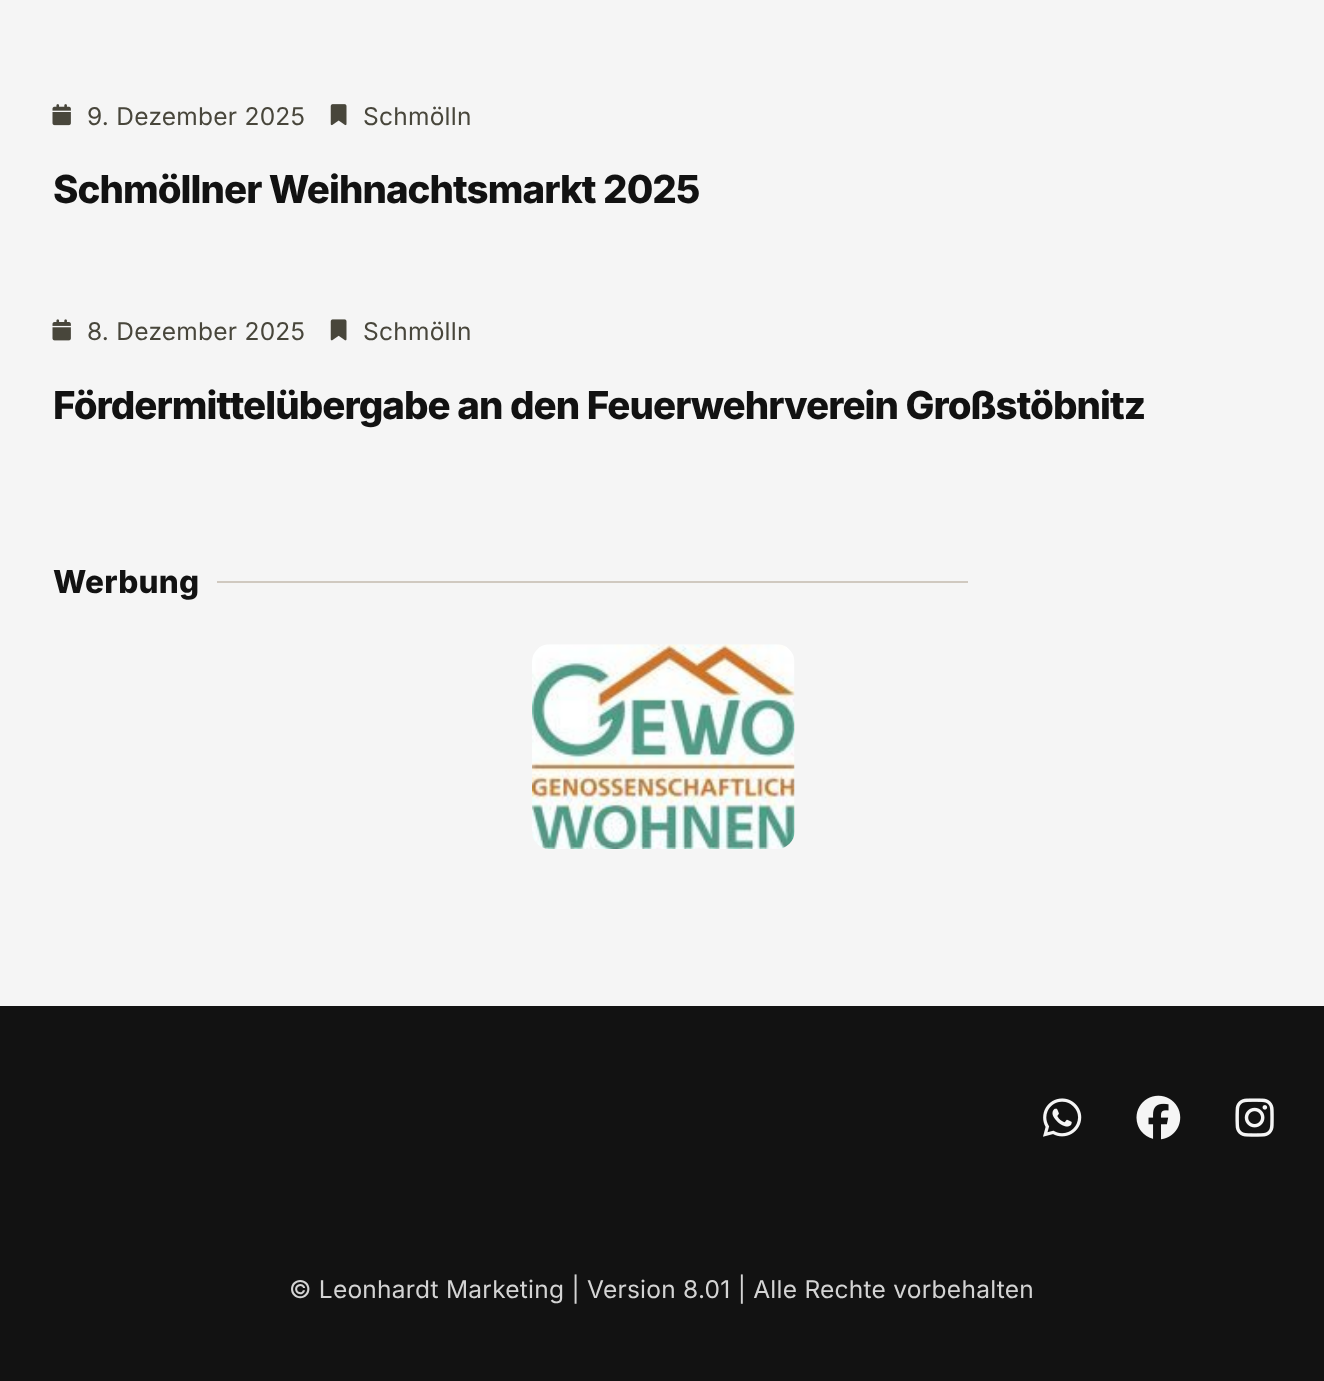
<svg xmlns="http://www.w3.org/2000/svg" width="1324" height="1381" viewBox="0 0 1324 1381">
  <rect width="100%" height="100%" fill="#f5f5f5"/>
  <image x="52" y="104" width="19" height="22" href="img1.png"/>
  <text x="87" y="125" font-family="Inter" font-size="24.5" letter-spacing="0.25" fill="#48463b">9. Dezember 2025</text>
  <image x="330" y="104" width="17" height="22" href="img2.png"/>
  <text x="363" y="125" font-family="Inter" font-size="24.5" letter-spacing="0.25" fill="#48463b">Schmölln</text>
  <text x="53" y="203" font-family="Inter" font-size="38.5" font-weight="800" letter-spacing="-0.95" fill="#121212">Schmöllner Weihnachtsmarkt 2025</text>
  <image x="52" y="319" width="19" height="22" href="img3.png"/>
  <text x="87" y="340" font-family="Inter" font-size="24.5" letter-spacing="0.25" fill="#48463b">8. Dezember 2025</text>
  <image x="330" y="319" width="17" height="22" href="img4.png"/>
  <text x="363" y="340" font-family="Inter" font-size="24.5" letter-spacing="0.25" fill="#48463b">Schmölln</text>
  <text x="53" y="419" font-family="Inter" font-size="38.5" font-weight="800" letter-spacing="-0.95" fill="#121212">Fördermittelübergabe an den Feuerwehrverein Großstöbnitz</text>
  <text x="53" y="593" font-family="Inter" font-size="31.5" font-weight="800" letter-spacing="0.25" fill="#121212">Werbung</text>
  <rect x="217" y="581" width="751" height="2" fill="#d0c9c0"/>
  <image x="532" y="644" width="263" height="205" href="img5.png"/>
  <rect x="0" y="1006" width="1324" height="375" fill="#121212"/>
  <image x="1043" y="1098" width="39" height="39" href="img6.png"/>
  <image x="1136" y="1095" width="45" height="45" href="img7.png"/>
  <image x="1235" y="1098" width="39" height="39" href="img8.png"/>
  <text x="289" y="1298" font-family="Inter" font-size="24.5" letter-spacing="0.25" fill="#d4d4d4">© Leonhardt Marketing | Version 8.01 | Alle Rechte vorbehalten</text>
</svg>
